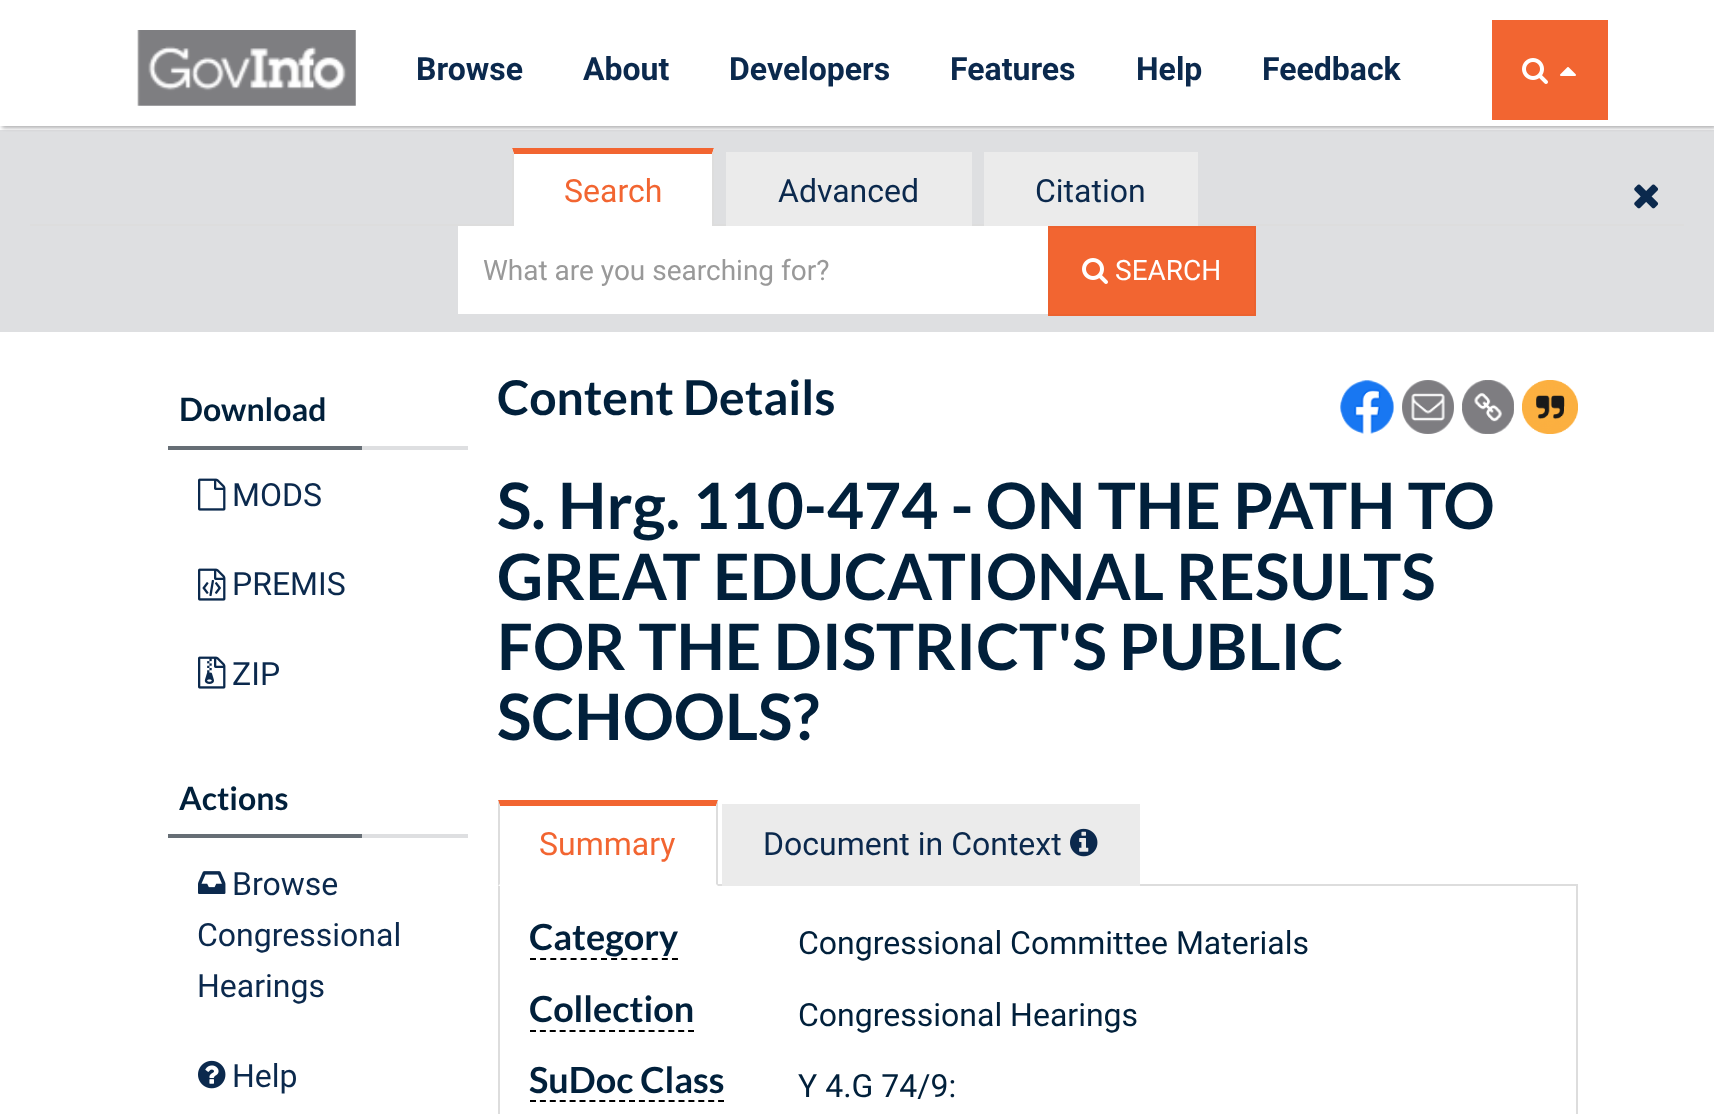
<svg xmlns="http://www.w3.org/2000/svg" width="1714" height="1114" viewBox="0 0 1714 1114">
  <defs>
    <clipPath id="clip1"><rect x="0" y="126" width="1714" height="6"/></clipPath>
    <filter id="blur1" x="-50%" y="-200%" width="200%" height="500%"><feGaussianBlur stdDeviation="2"/></filter>
  </defs>
  <rect width="100%" height="100%" fill="#ffffff"/>
  <rect x="0" y="130" width="1714" height="202" fill="#dedfe1"/>
  <g clip-path="url(#clip1)">
    <rect x="2" y="2" width="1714" height="126" fill="#acacae" filter="url(#blur1)"/>
  </g>
  <image x="137" y="30" width="219" height="76" href="img1.png"/>
  <text x="416" y="80" font-family="Roboto" font-size="32" font-weight="bold" fill="#0b294d">Browse</text>
  <text x="583" y="80" font-family="Roboto" font-size="32" font-weight="bold" fill="#0b294d">About</text>
  <text x="729" y="80" font-family="Roboto" font-size="32" font-weight="bold" fill="#0b294d">Developers</text>
  <text x="950" y="80" font-family="Roboto" font-size="32" font-weight="bold" fill="#0b294d">Features</text>
  <text x="1136" y="80" font-family="Roboto" font-size="32" font-weight="bold" fill="#0b294d">Help</text>
  <text x="1262" y="80" font-family="Roboto" font-size="32" font-weight="bold" fill="#0b294d">Feedback</text>
  <rect x="1492" y="20" width="116" height="100" fill="#f26531"/>
  <image x="1522" y="58" width="26" height="26" href="img2.png"/>
  <image x="1560" y="67" width="16" height="9" href="img3.png"/>
  <rect x="30" y="224" width="1654" height="2" fill="#dddddd"/>
  <rect x="512" y="148" width="202" height="78" fill="#ffffff"/>
  <path d="M512 148H714L712 154H514Z" fill="#f26531"/>
  <path d="M714 148V234L712 232V154Z" fill="#dddddd"/>
  <path d="M512 234V148L514 154V232Z" fill="#dddddd"/>
  <text x="564" y="202" font-family="Roboto" font-size="32" fill="#f26531">Search</text>
  <rect x="726" y="152" width="246" height="74" fill="#ebebeb"/>
  <text x="778" y="202" font-family="Roboto" font-size="32" fill="#0b294d">Advanced</text>
  <rect x="984" y="152" width="214" height="74" fill="#ebebeb"/>
  <text x="1035" y="202" font-family="Roboto" font-size="32" fill="#0b294d">Citation</text>
  <rect x="458" y="226" width="590" height="88" fill="#ffffff"/>
  <text x="483" y="280" font-family="Roboto" font-size="28" fill="#999999">What are you searching for?</text>
  <rect x="1049" y="227" width="206" height="88" fill="#f26531" stroke="#ec622f" stroke-width="2"/>
  <image x="1082" y="258" width="26" height="26" href="img2.png"/>
  <text x="1115" y="280" font-family="Roboto" font-size="28" fill="#ffffff">SEARCH</text>
  <image x="1634" y="184" width="25" height="25" href="img4.png"/>
  <rect x="362" y="446" width="106" height="4" fill="#dedfe1"/>
  <text x="179" y="421" font-family="Lato" font-size="32" font-weight="bold" fill="#01203b">Download</text>
  <rect x="168" y="446" width="194" height="4" fill="#666e75"/>
  <image x="198" y="478" width="28" height="33" href="img5.png"/>
  <text x="232" y="506" font-family="Roboto" font-size="32" fill="#0b294d">MODS</text>
  <image x="198" y="568" width="28" height="33" href="img6.png"/>
  <text x="232" y="595" font-family="Roboto" font-size="32" fill="#0b294d">PREMIS</text>
  <image x="198" y="656" width="28" height="33" href="img7.png"/>
  <text x="232" y="685" font-family="Roboto" font-size="32" fill="#0b294d">ZIP</text>
  <rect x="362" y="834" width="106" height="4" fill="#dedfe1"/>
  <text x="179" y="810" font-family="Lato" font-size="32" font-weight="bold" fill="#01203b">Actions</text>
  <rect x="168" y="834" width="194" height="4" fill="#666e75"/>
  <image x="198" y="871" width="28" height="23" href="img8.png"/>
  <text x="232" y="895" font-family="Roboto" font-size="32" fill="#0b294d">Browse</text>
  <text x="197" y="946" font-family="Roboto" font-size="32" fill="#0b294d">Congressional</text>
  <text x="197" y="997" font-family="Roboto" font-size="32" fill="#0b294d">Hearings</text>
  <image x="198" y="1060" width="28" height="29" href="img9.png"/>
  <text x="232" y="1087" font-family="Roboto" font-size="32" fill="#0b294d">Help</text>
  <text x="497" y="415" font-family="Lato" font-size="48" font-weight="bold" fill="#01203b">Content Details</text>
  <image x="1340" y="380" width="54" height="54" href="img10.png"/>
  <image x="1402" y="380" width="52" height="54" href="img11.png"/>
  <image x="1462" y="380" width="52" height="54" href="img12.png"/>
  <image x="1522" y="380" width="56" height="54" href="img13.png"/>
  <text x="497" y="529" font-family="Lato" font-size="64" font-weight="bold" fill="#01203b">S. Hrg. 110-474 - ON THE PATH TO</text>
  <text x="497" y="600" font-family="Lato" font-size="64" font-weight="bold" fill="#01203b">GREAT EDUCATIONAL RESULTS</text>
  <text x="497" y="670" font-family="Lato" font-size="64" font-weight="bold" fill="#01203b">FOR THE DISTRICT'S PUBLIC</text>
  <text x="497" y="740" font-family="Lato" font-size="64" font-weight="bold" fill="#01203b">SCHOOLS?</text>
  <rect x="718" y="884" width="860" height="2" fill="#dddddd"/>
  <path d="M498 800H718L716 806H500Z" fill="#f26531"/>
  <path d="M718 800V886L716 884V806Z" fill="#dddddd"/>
  <path d="M498 886V800L500 806V884Z" fill="#dddddd"/>
  <text x="539" y="855" font-family="Roboto" font-size="32" fill="#f26531">Summary</text>
  <rect x="722" y="804" width="418" height="82" fill="#ebebeb"/>
  <text x="763" y="855" font-family="Roboto" font-size="32" fill="#0b294d">Document in Context</text>
  <image x="1070" y="828" width="28" height="29" href="img14.png"/>
  <rect x="1576" y="886" width="2" height="228" fill="#dddddd"/>
  <rect x="498" y="886" width="2" height="228" fill="#dddddd"/>
  <text x="529" y="950" font-family="Lato" font-size="36" font-weight="bold" fill="#01203b">Category</text>
  <path d="M530 959H678" fill="none" stroke="#000000" stroke-width="2" stroke-dasharray="6 4.14"/>
  <text x="798" y="954" font-family="Roboto" font-size="32" fill="#01203b">Congressional Committee Materials</text>
  <text x="529" y="1022" font-family="Lato" font-size="36" font-weight="bold" fill="#01203b">Collection</text>
  <path d="M530 1031H694" fill="none" stroke="#000000" stroke-width="2" stroke-dasharray="6 3.88"/>
  <text x="798" y="1026" font-family="Roboto" font-size="32" fill="#01203b">Congressional Hearings</text>
  <text x="529" y="1093" font-family="Lato" font-size="36" font-weight="bold" fill="#01203b">SuDoc Class</text>
  <path d="M530 1101H724" fill="none" stroke="#000000" stroke-width="2" stroke-dasharray="6 3.9"/>
  <text x="798" y="1097" font-family="Roboto" font-size="32" fill="#01203b">Y 4.G 74/9:</text>
</svg>
